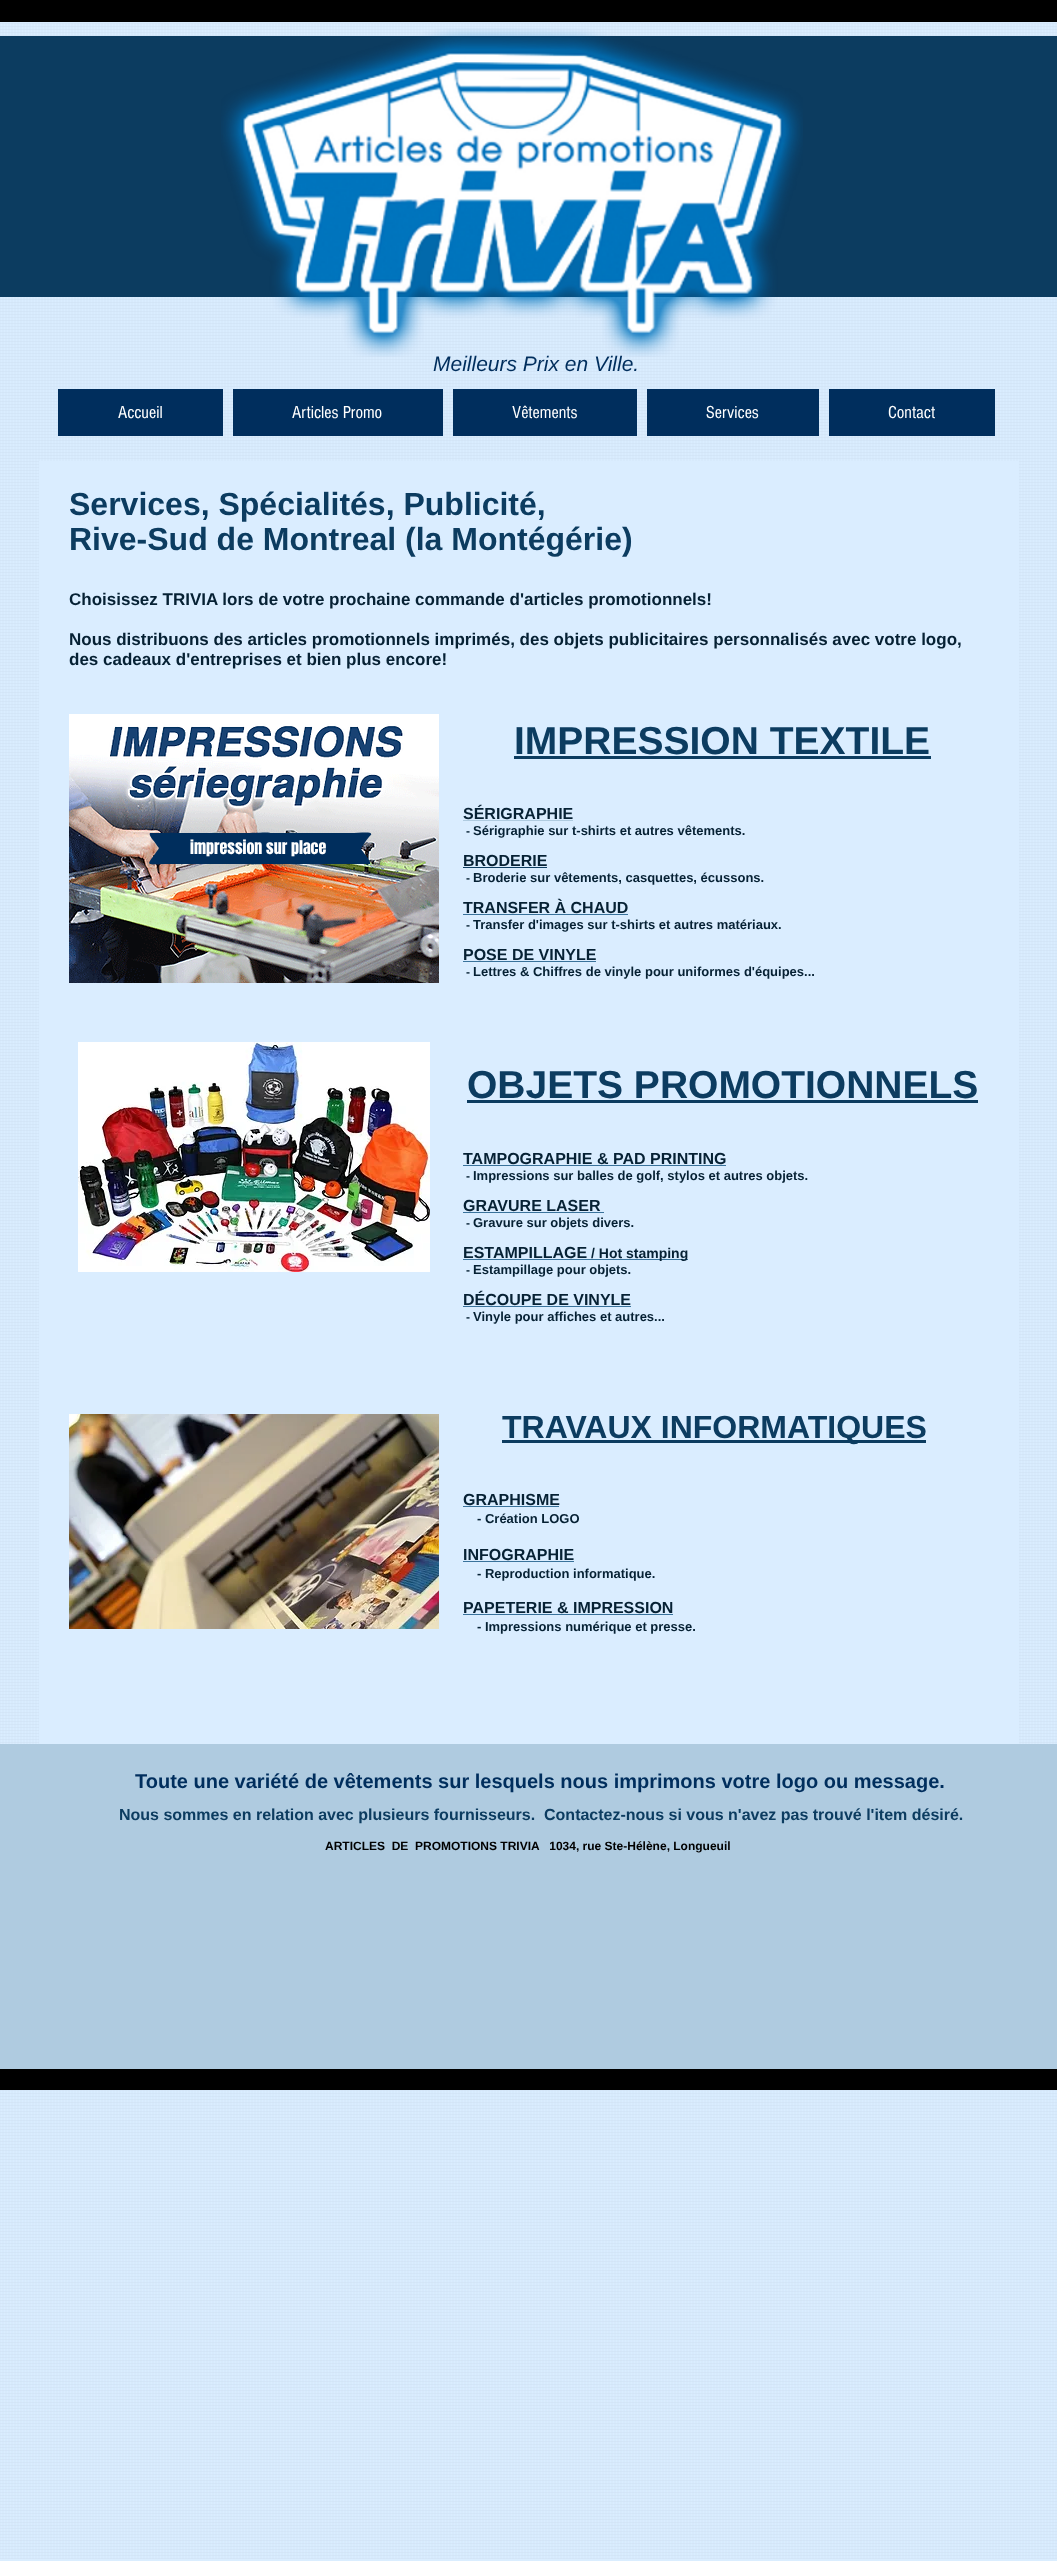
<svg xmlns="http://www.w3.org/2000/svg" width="1057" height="2561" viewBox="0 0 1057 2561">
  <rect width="100%" height="100%" fill="#daedff"/>
  <image x="0" y="23" width="1057" height="2536" href="img1.png"/>
  <rect x="0" y="0" width="1057" height="22" fill="#000000"/>
  <rect x="0" y="36" width="1057" height="261" fill="#0c3c60"/>
  <text x="433" y="371" font-family="Liberation Sans" font-size="21" font-style="italic" fill="#002e5d">Meilleurs Prix en Ville.</text>
  <image x="221" y="28" width="582" height="329" href="img2.png"/>
  <rect x="58" y="389" width="165" height="47" fill="#002e5d"/>
  <text x="118" y="418" font-family="'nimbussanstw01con'" font-size="18" fill="#ffffff">Accueil</text>
  <rect x="233" y="389" width="210" height="47" fill="#002e5d"/>
  <text x="292" y="418" font-family="'nimbussanstw01con'" font-size="18" fill="#ffffff">Articles Promo</text>
  <rect x="453" y="389" width="184" height="47" fill="#002e5d"/>
  <text x="512" y="418" font-family="'nimbussanstw01con'" font-size="18" fill="#ffffff">Vêtements</text>
  <rect x="647" y="389" width="172" height="47" fill="#002e5d"/>
  <text x="706" y="418" font-family="'nimbussanstw01con'" font-size="18" fill="#ffffff">Services</text>
  <rect x="829" y="389" width="166" height="47" fill="#002e5d"/>
  <text x="888" y="418" font-family="'nimbussanstw01con'" font-size="18" fill="#ffffff">Contact</text>
  <rect x="39" y="461" width="980" height="1283" fill="#daedff"/>
  <text x="69" y="515" font-family="Liberation Sans" font-size="32" font-weight="bold" fill="#0c3c60">Services, Spécialités, Publicité,</text>
  <text x="69" y="550" font-family="Liberation Sans" font-size="32" font-weight="bold" fill="#0c3c60">Rive-Sud de Montreal (la Montégérie)</text>
  <text x="69" y="605" font-family="Liberation Sans" font-size="17" font-weight="bold" fill="#062134">Choisissez TRIVIA lors de votre prochaine commande d'articles promotionnels!</text>
  <text x="69" y="645" font-family="Liberation Sans" font-size="17" font-weight="bold" fill="#062134">Nous distribuons des articles promotionnels imprimés, des objets publicitaires personnalisés avec votre logo,</text>
  <text x="69" y="665" font-family="Liberation Sans" font-size="17" font-weight="bold" fill="#062134">des cadeaux d'entreprises et bien plus encore!</text>
  <image x="69" y="714" width="370" height="269" href="img3.png"/>
  <text x="514" y="754" font-family="Liberation Sans" font-size="39" font-weight="bold" fill="#0c3c60">IMPRESSION TEXTILE</text>
  <rect x="514" y="756" width="417" height="3" fill="#0c3c60"/>
  <text x="463" y="819" font-family="Liberation Sans" font-size="16" font-weight="bold" fill="#062134">SÉRIGRAPHIE</text>
  <rect x="463" y="820" width="110" height="1" fill="#afcbe0"/>
  <text x="466" y="835" font-family="Liberation Sans" font-size="12" font-weight="bold" fill="#062134">-</text>
  <text x="473" y="835" font-family="Liberation Sans" font-size="13" font-weight="bold" fill="#062134">Sérigraphie sur t-shirts et autres vêtements.</text>
  <text x="463" y="866" font-family="Liberation Sans" font-size="16" font-weight="bold" fill="#062134">BRODERIE</text>
  <rect x="463" y="867" width="84" height="1" fill="#0c3c60"/>
  <text x="466" y="882" font-family="Liberation Sans" font-size="12" font-weight="bold" fill="#062134">-</text>
  <text x="473" y="882" font-family="Liberation Sans" font-size="13" font-weight="bold" fill="#062134">Broderie sur vêtements, casquettes, écussons.</text>
  <text x="463" y="913" font-family="Liberation Sans" font-size="16" font-weight="bold" fill="#062134">TRANSFER À CHAUD</text>
  <rect x="463" y="914" width="165" height="1" fill="#39729b"/>
  <text x="466" y="929" font-family="Liberation Sans" font-size="12" font-weight="bold" fill="#062134">-</text>
  <text x="473" y="929" font-family="Liberation Sans" font-size="13" font-weight="bold" fill="#062134">Transfer d'images sur t-shirts et autres matériaux.</text>
  <text x="463" y="960" font-family="Liberation Sans" font-size="16" font-weight="bold" fill="#062134">POSE DE VINYLE</text>
  <rect x="463" y="961" width="133" height="1" fill="#39729b"/>
  <text x="466" y="976" font-family="Liberation Sans" font-size="12" font-weight="bold" fill="#062134">-</text>
  <text x="473" y="976" font-family="Liberation Sans" font-size="13" font-weight="bold" fill="#062134">Lettres &amp; Chiffres de vinyle pour uniformes d'équipes...</text>
  <path d="M271 835C273 831 261 833 250 833H150C148 835 155 842 156 844C159 849 160 847 157 851C145 868 145 864 170 864H270C272 862 262 851 261 849C261 848 269 836 271 835Z" fill="#002e5d"/>
  <path d="M371 835C373 831 361 833 350 833H250C248 835 255 842 256 844C259 849 260 847 257 851C245 868 245 864 270 864H370C372 862 362 851 361 849C361 848 369 836 371 835Z" fill="#002e5d"/>
  <text x="190" y="854" font-family="Anton" font-size="16" fill="#ffffff">impression sur place</text>
  <image x="78" y="1042" width="352" height="230" href="img4.png"/>
  <text x="467" y="1098" font-family="Liberation Sans" font-size="39" font-weight="bold" fill="#0c3c60">OBJETS PROMOTIONNELS</text>
  <rect x="467" y="1100" width="511" height="3" fill="#0c3c60"/>
  <text x="463" y="1164" font-family="Liberation Sans" font-size="16" font-weight="bold" fill="#062134">TAMPOGRAPHIE &amp; PAD PRINTING</text>
  <rect x="463" y="1165" width="263" height="1" fill="#39729b"/>
  <text x="466" y="1180" font-family="Liberation Sans" font-size="12" font-weight="bold" fill="#062134">-</text>
  <text x="473" y="1180" font-family="Liberation Sans" font-size="13" font-weight="bold" fill="#062134">Impressions sur balles de golf, stylos et autres objets.</text>
  <text x="463" y="1211" font-family="Liberation Sans" font-size="16" font-weight="bold" fill="#062134">GRAVURE LASER</text>
  <rect x="463" y="1212" width="141" height="1" fill="#39729b"/>
  <text x="466" y="1227" font-family="Liberation Sans" font-size="12" font-weight="bold" fill="#062134">-</text>
  <text x="473" y="1227" font-family="Liberation Sans" font-size="13" font-weight="bold" fill="#062134">Gravure sur objets divers.</text>
  <text x="463" y="1258" font-family="Liberation Sans" font-size="16" font-weight="bold" fill="#062134">ESTAMPILLAGE</text>
  <rect x="463" y="1259" width="225" height="1" fill="#39729b"/>
  <text x="591" y="1258" font-family="Liberation Sans" font-size="14" font-weight="bold" fill="#062134">/ Hot stamping</text>
  <text x="466" y="1274" font-family="Liberation Sans" font-size="12" font-weight="bold" fill="#062134">-</text>
  <text x="473" y="1274" font-family="Liberation Sans" font-size="13" font-weight="bold" fill="#062134">Estampillage pour objets.</text>
  <text x="463" y="1305" font-family="Liberation Sans" font-size="16" font-weight="bold" fill="#062134">DÉCOUPE DE VINYLE</text>
  <rect x="463" y="1306" width="168" height="1" fill="#39729b"/>
  <text x="466" y="1321" font-family="Liberation Sans" font-size="12" font-weight="bold" fill="#062134">-</text>
  <text x="473" y="1321" font-family="Liberation Sans" font-size="13" font-weight="bold" fill="#062134">Vinyle pour affiches et autres...</text>
  <image x="69" y="1414" width="370" height="215" href="img5.png"/>
  <rect x="502" y="1440" width="424" height="3" fill="#0c3c60"/>
  <text x="502" y="1438" font-family="Liberation Sans" font-size="32" font-weight="bold" fill="#0c3c60">TRAVAUX INFORMATIQUES</text>
  <text x="463" y="1505" font-family="Liberation Sans" font-size="16" font-weight="bold" fill="#062134">GRAPHISME</text>
  <rect x="463" y="1506" width="96" height="1" fill="#39729b"/>
  <text x="477" y="1523" font-family="Liberation Sans" font-size="13" font-weight="bold" fill="#062134">- Création LOGO</text>
  <text x="463" y="1560" font-family="Liberation Sans" font-size="16" font-weight="bold" fill="#062134">INFOGRAPHIE</text>
  <rect x="463" y="1561" width="111" height="1" fill="#39729b"/>
  <text x="477" y="1578" font-family="Liberation Sans" font-size="13" font-weight="bold" fill="#062134">- Reproduction informatique.</text>
  <text x="463" y="1613" font-family="Liberation Sans" font-size="16" font-weight="bold" fill="#062134">PAPETERIE &amp; IMPRESSION</text>
  <rect x="463" y="1614" width="210" height="1" fill="#39729b"/>
  <text x="477" y="1631" font-family="Liberation Sans" font-size="13" font-weight="bold" fill="#062134">- Impressions numérique et presse.</text>
  <rect x="0" y="1744" width="1057" height="325" fill="#afcbe0"/>
  <text x="135" y="1788" font-family="Liberation Sans" font-size="20" font-weight="bold" fill="#002e5d">Toute une variété de vêtements sur lesquels nous imprimons votre logo ou message.</text>
  <text x="119" y="1820" font-family="Liberation Sans" font-size="16" font-weight="bold" fill="#0c3c60" xml:space="preserve">Nous sommes en relation avec plusieurs fournisseurs.  Contactez-nous si vous n'avez pas trouvé l'item désiré.</text>
  <text x="325" y="1850" font-family="Liberation Sans" font-size="12" font-weight="bold" fill="#000000" xml:space="preserve">ARTICLES  DE  PROMOTIONS TRIVIA   1034, rue Ste-Hélène, Longueuil</text>
  <rect x="0" y="2069" width="1057" height="21" fill="#000000"/>
</svg>
